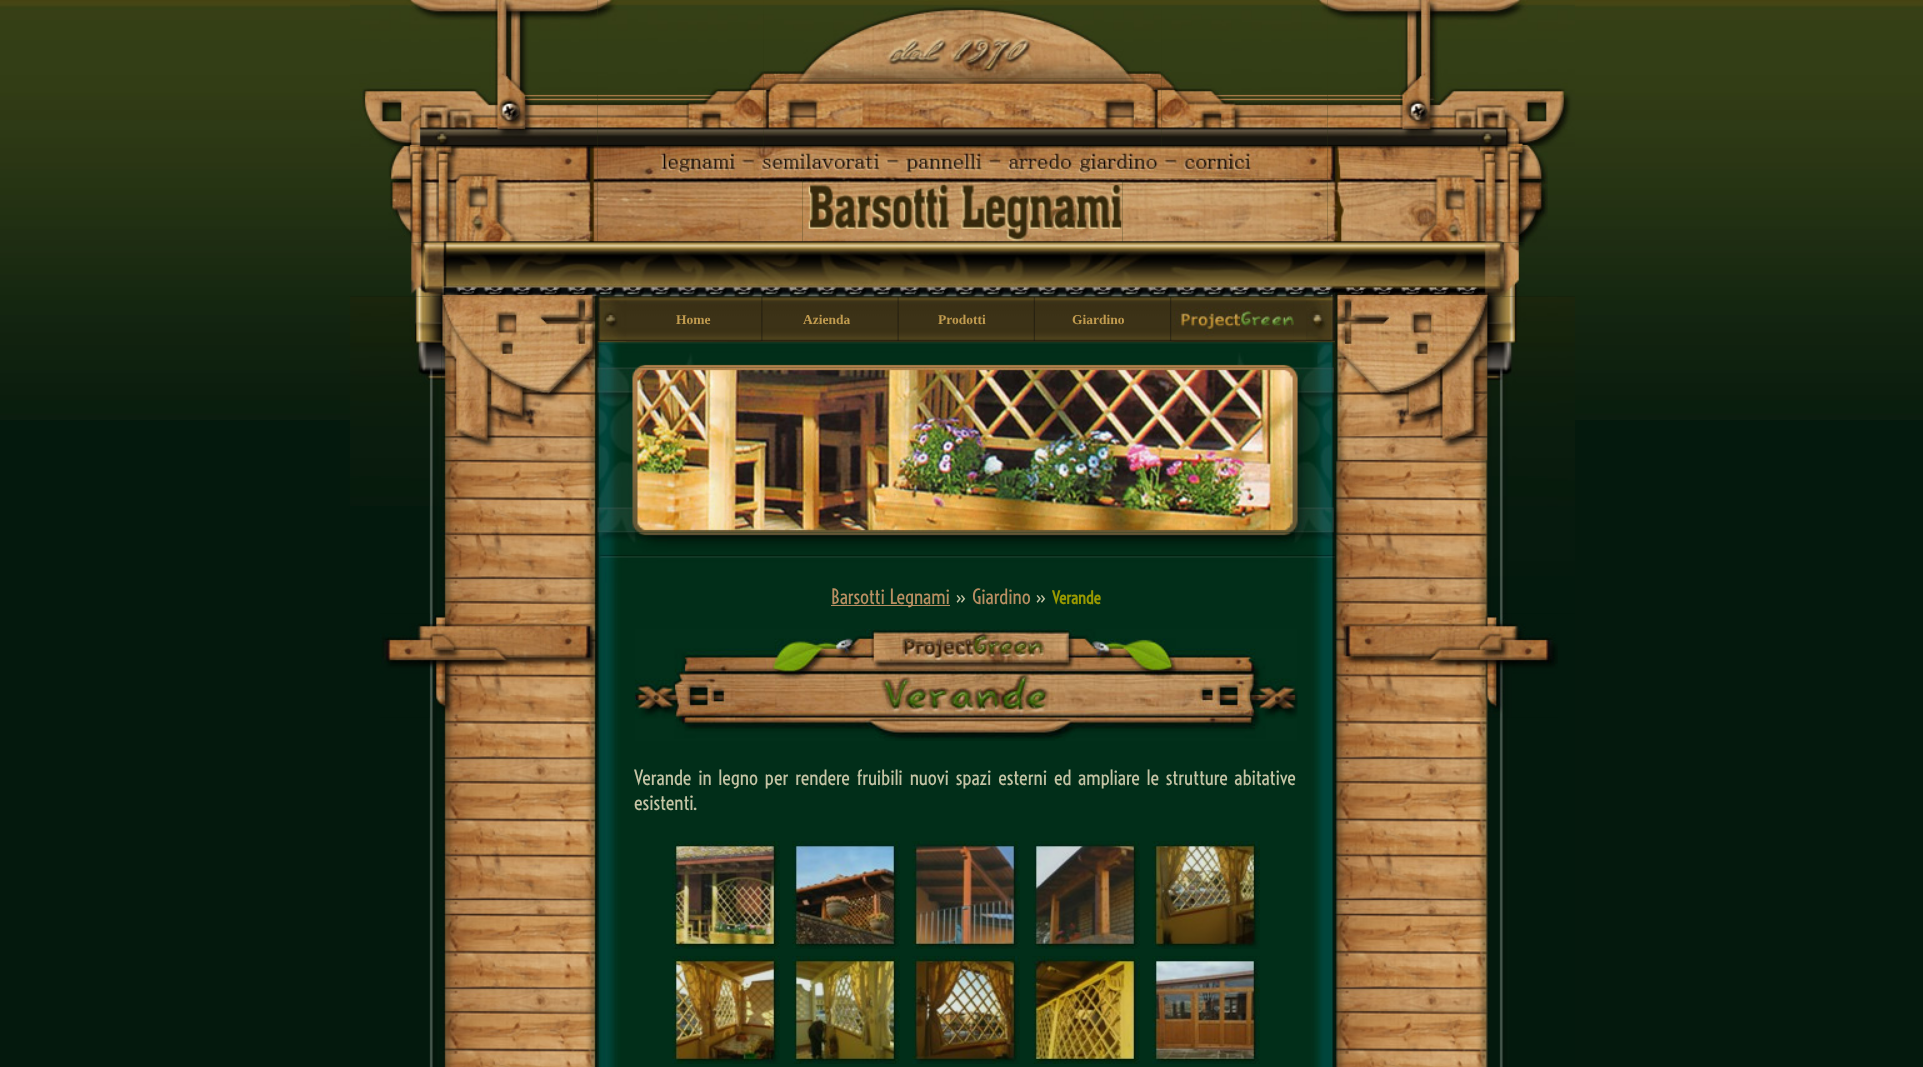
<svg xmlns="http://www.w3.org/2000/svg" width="1923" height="1067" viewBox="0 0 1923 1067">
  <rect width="100%" height="100%" fill="#04190d"/>
  <image x="0" y="0" width="1923" height="420" href="img1.png"/>
  <image x="350" y="0" width="248" height="147" href="img2.png"/>
  <image x="597" y="0" width="167" height="147" href="img3.png"/>
  <image x="763" y="0" width="399" height="79" href="img4.png"/>
  <image x="1161" y="0" width="167" height="147" href="img5.png"/>
  <image x="1327" y="0" width="248" height="147" href="img6.png"/>
  <image x="763" y="78" width="399" height="69" href="img7.png"/>
  <image x="388" y="146" width="210" height="97" href="img8.png"/>
  <image x="597" y="146" width="731" height="33" href="img9.png"/>
  <image x="1327" y="146" width="221" height="97" href="img10.png"/>
  <image x="597" y="178" width="206" height="65" href="img11.png"/>
  <image x="802" y="178" width="321" height="65" href="img12.png"/>
  <image x="1122" y="178" width="206" height="65" href="img13.png"/>
  <image x="350" y="296" width="1225" height="771" href="img15.png"/>
  <image x="597" y="296" width="738" height="771" href="img19.png"/>
  <image x="597" y="296" width="738" height="47" href="img20.png"/>
  <image x="410" y="242" width="1115" height="55" href="img14.png"/>
  <image x="350" y="296" width="92" height="210" href="img16.png"/>
  <image x="441" y="296" width="157" height="318" href="img17.png"/>
  <image x="380" y="613" width="218" height="105" href="img18.png"/>
  <image x="626" y="297" width="136" height="45" href="img21.png"/>
  <text x="676" y="324" font-family="Liberation Serif" font-size="13.5" font-weight="bold" fill="#c19b4f">Home</text>
  <image x="762" y="297" width="136" height="44" href="img22.png"/>
  <text x="803" y="324" font-family="Liberation Serif" font-size="13.5" font-weight="bold" fill="#c19b4f">Azienda</text>
  <image x="898" y="297" width="136" height="44" href="img23.png"/>
  <text x="938" y="324" font-family="Liberation Serif" font-size="13.5" font-weight="bold" fill="#c19b4f">Prodotti</text>
  <image x="1035" y="297" width="135" height="44" href="img24.png"/>
  <text x="1072" y="324" font-family="Liberation Serif" font-size="13.5" font-weight="bold" fill="#c19b4f">Giardino</text>
  <image x="1171" y="297" width="135" height="45" href="img25.png"/>
  <image x="1174" y="297" width="120" height="45" href="img26.png"/>
  <image x="597" y="342" width="738" height="26" href="img27.png"/>
  <image x="597" y="367" width="38" height="166" href="img28.png"/>
  <image x="635" y="367" width="660" height="166" href="img29.png"/>
  <image x="1295" y="367" width="40" height="166" href="img30.png"/>
  <image x="597" y="532" width="738" height="51" href="img31.png"/>
  <rect x="831" y="605" width="119" height="1" fill="#b98f62"/>
  <text x="831" y="604" font-family="Voltaire" font-size="20" fill="#b98f62">Barsotti Legnami</text>
  <text x="955" y="604" font-family="Voltaire" font-size="20" fill="#c5c4a5">»</text>
  <text x="972" y="604" font-family="Voltaire" font-size="20" fill="#b98f62">Giardino</text>
  <text x="1035" y="604" font-family="Voltaire" font-size="20" fill="#c5c4a5">»</text>
  <text x="1052" y="604" font-family="Voltaire" font-size="17" font-weight="bold" fill="#999900">Verande</text>
  <image x="635" y="629" width="663" height="112" href="img32.png"/>
  <text x="634" y="785" word-spacing="2.25" font-family="Voltaire" font-size="20" fill="#c5c4a5">Verande in legno per rendere fruibili nuovi spazi esterni ed ampliare le strutture abitative</text>
  <text x="634" y="810" font-family="Voltaire" font-size="20" fill="#c5c4a5">esistenti.</text>
  <image x="672" y="841" width="108" height="108" href="img33.png"/>
  <image x="792" y="841" width="108" height="108" href="img34.png"/>
  <image x="912" y="841" width="108" height="108" href="img35.png"/>
  <image x="1033" y="841" width="107" height="108" href="img36.png"/>
  <image x="1152" y="841" width="108" height="108" href="img37.png"/>
  <image x="672" y="956" width="108" height="108" href="img38.png"/>
  <image x="792" y="956" width="108" height="108" href="img39.png"/>
  <image x="912" y="956" width="108" height="108" href="img40.png"/>
  <image x="1032" y="956" width="108" height="108" href="img41.png"/>
  <image x="1152" y="956" width="108" height="108" href="img42.png"/>
  <image x="1335" y="296" width="153" height="318" href="img43.png"/>
  <image x="1487" y="296" width="88" height="318" href="img44.png"/>
  <image x="1335" y="613" width="223" height="105" href="img45.png"/>
</svg>
